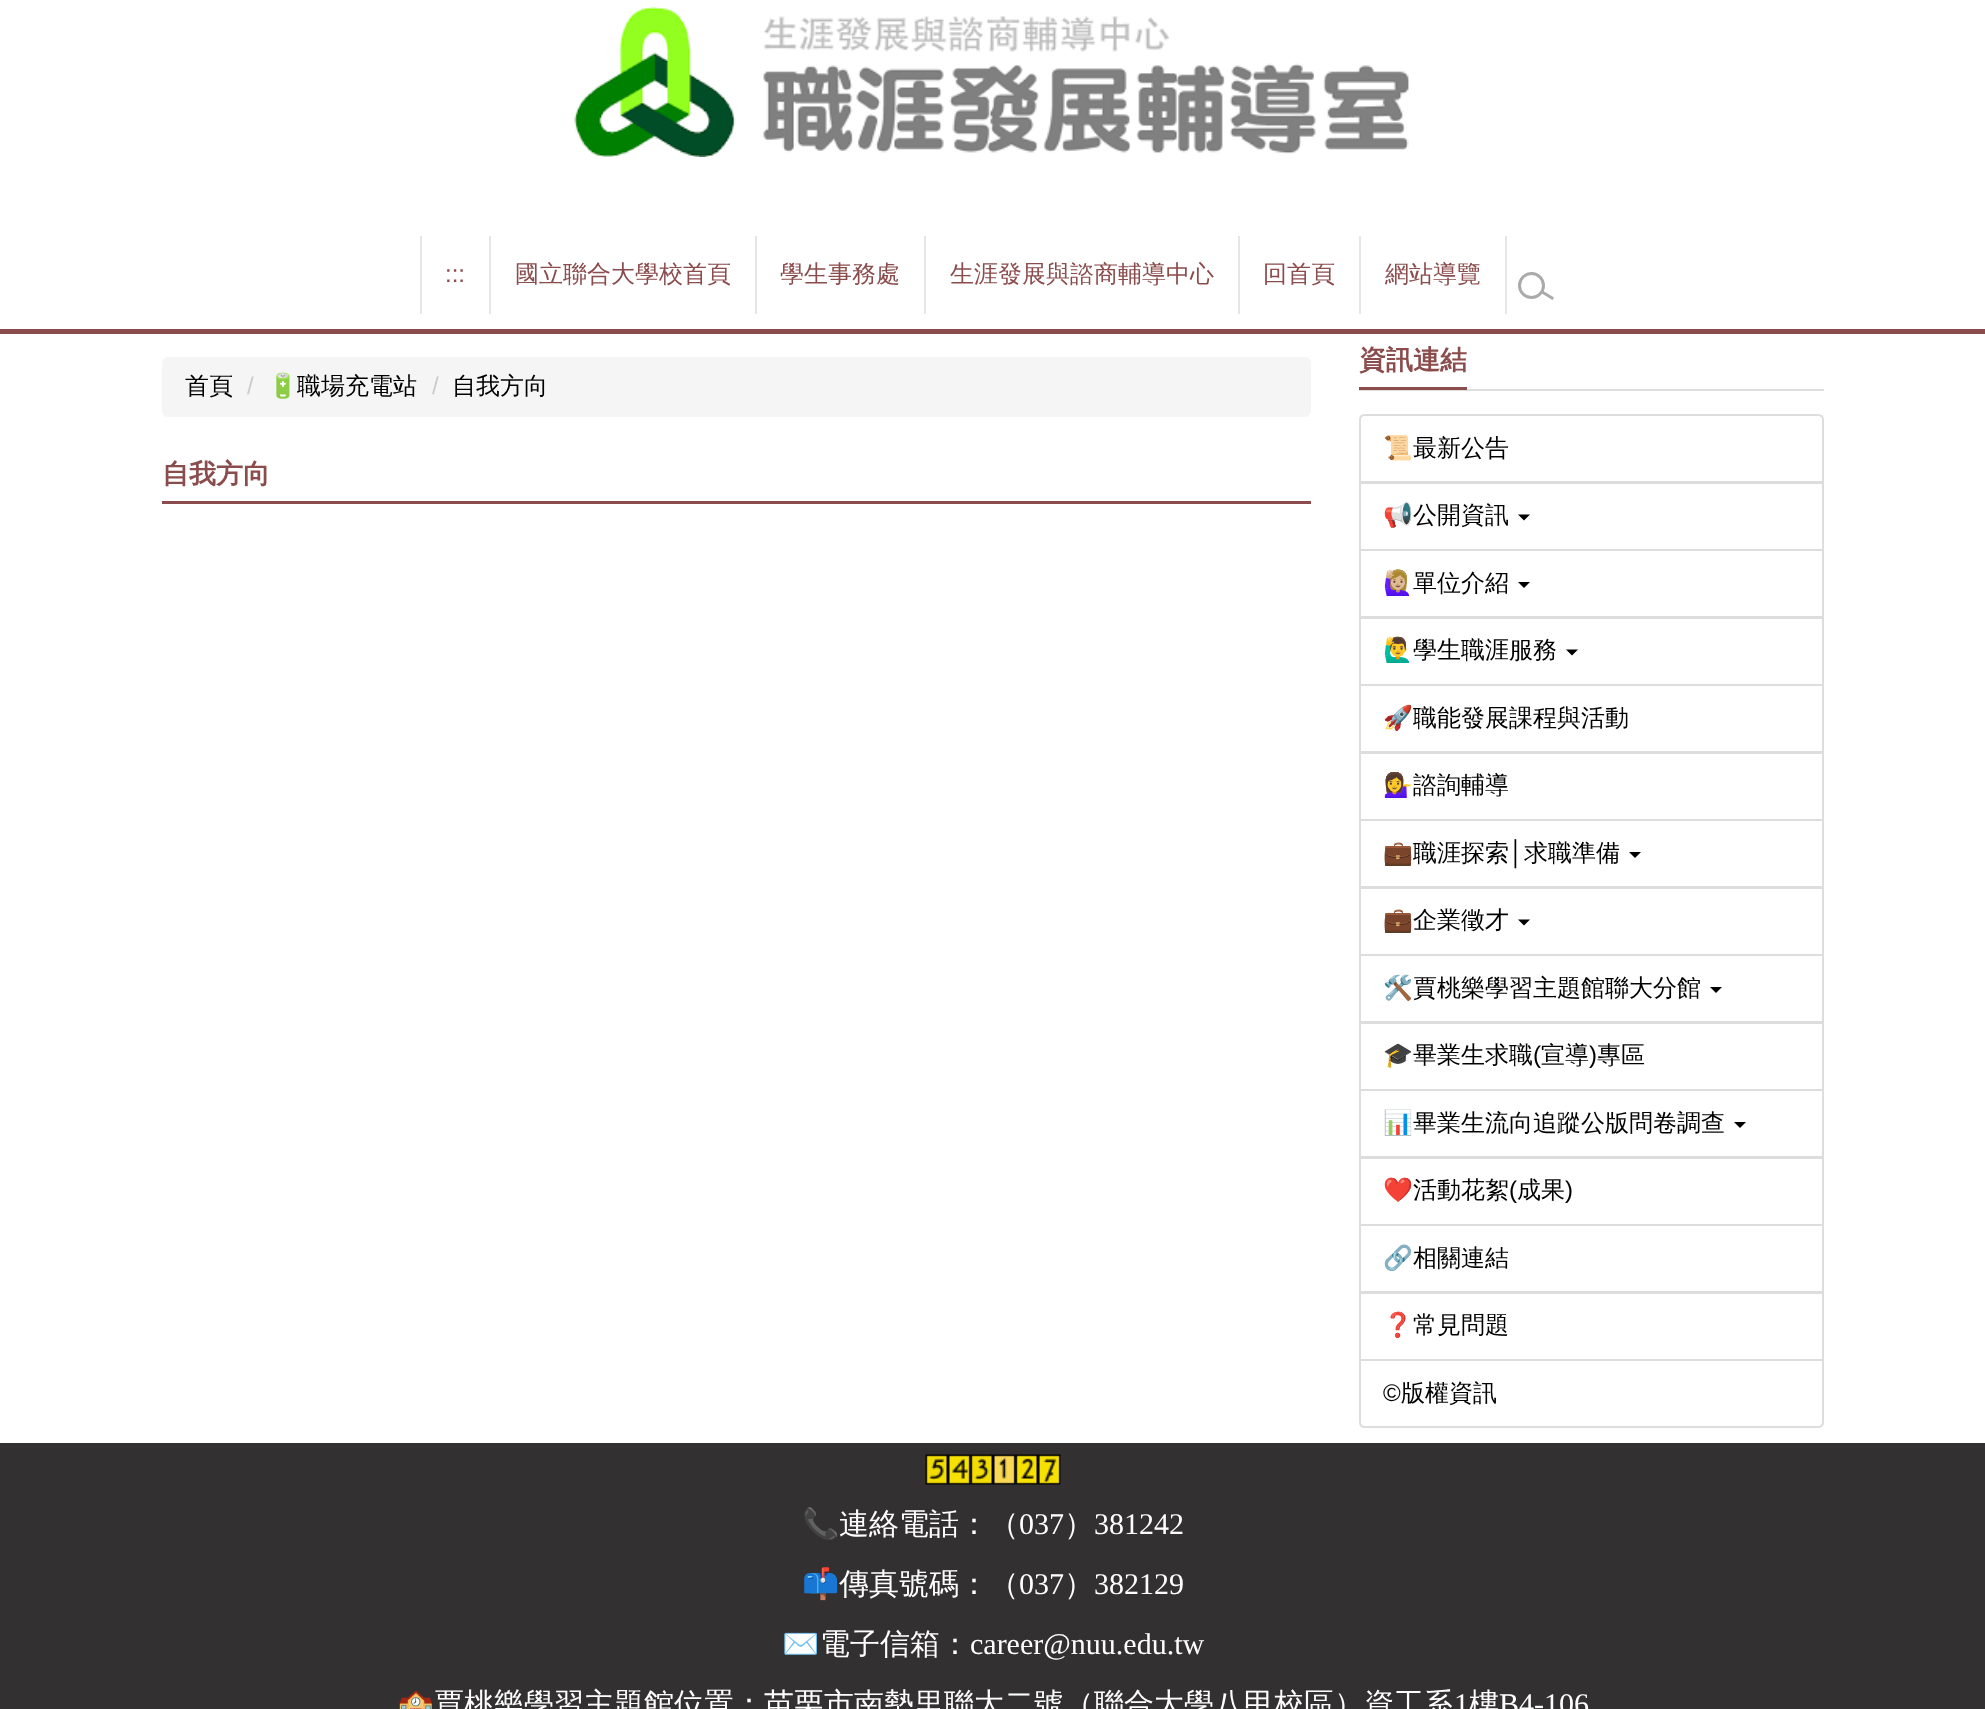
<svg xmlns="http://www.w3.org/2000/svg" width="1985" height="1709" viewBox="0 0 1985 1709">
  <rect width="100%" height="100%" fill="#ffffff"/>
  <rect x="0" y="329" width="1985" height="5" fill="#8a4c4c"/>
  <image x="574" y="7" width="835" height="150" href="img1.png"/>
  <rect x="420" y="236" width="2" height="78" fill="#e6e6e6"/>
  <text x="445" y="282" font-family="Liberation Sans" font-size="24" fill="#8a4c4c">:::</text>
  <rect x="489" y="236" width="2" height="78" fill="#e6e6e6"/>
  <text x="515" y="282" font-family="WenQuanYi Zen Hei" font-size="24" font-weight="500" fill="#8a4c4c">國立聯合大學校首頁</text>
  <rect x="755" y="236" width="2" height="78" fill="#e6e6e6"/>
  <text x="780" y="282" font-family="WenQuanYi Zen Hei" font-size="24" font-weight="500" fill="#8a4c4c">學生事務處</text>
  <rect x="924" y="236" width="2" height="78" fill="#e6e6e6"/>
  <text x="950" y="282" font-family="WenQuanYi Zen Hei" font-size="24" font-weight="500" fill="#8a4c4c">生涯發展與諮商輔導中心</text>
  <rect x="1238" y="236" width="2" height="78" fill="#e6e6e6"/>
  <text x="1263" y="282" font-family="WenQuanYi Zen Hei" font-size="24" font-weight="500" fill="#8a4c4c">回首頁</text>
  <rect x="1359" y="236" width="2" height="78" fill="#e6e6e6"/>
  <text x="1385" y="282" font-family="WenQuanYi Zen Hei" font-size="24" font-weight="500" fill="#8a4c4c">網站導覽</text>
  <rect x="1505" y="236" width="2" height="78" fill="#e6e6e6"/>
  <circle cx="1531.5" cy="285.5" r="12" fill="none" stroke="#aaaaaa" stroke-width="3"/>
  <path d="M1542.5 290.5L1554 297.5L1552.5 300L1541 293Z" fill="#aaaaaa"/>
  <rect x="162" y="357" width="1149" height="60" rx="6" fill="#f5f5f5"/>
  <text x="185" y="394" font-family="WenQuanYi Zen Hei" font-size="24" font-weight="500" fill="#000000">首頁</text>
  <text x="247" y="394" font-family="Liberation Sans" font-size="24" fill="#cccccc">/</text>
  <text x="268" y="394" font-family="Noto Color Emoji" font-size="24" fill="#000000">🔋</text>
  <text x="297" y="394" font-family="WenQuanYi Zen Hei" font-size="24" font-weight="500" fill="#000000">職場充電站</text>
  <text x="432" y="394" font-family="Liberation Sans" font-size="24" fill="#cccccc">/</text>
  <text x="452" y="394" font-family="WenQuanYi Zen Hei" font-size="24" font-weight="500" fill="#000000">自我方向</text>
  <rect x="162" y="501" width="1149" height="3" fill="#8a4c4c"/>
  <text x="162" y="483" font-family="WenQuanYi Zen Hei" font-size="27" font-weight="bold" fill="#8a4c4c">自我方向</text>
  <rect x="1359" y="389" width="465" height="2" fill="#dddddd"/>
  <rect x="1359" y="387" width="108" height="3" fill="#8a4c4c"/>
  <text x="1359" y="369" font-family="WenQuanYi Zen Hei" font-size="27" font-weight="bold" fill="#8a4c4c">資訊連結</text>
  <path d="M1365 415H1818C1821 415 1823 417 1823 420V482H1360V420C1360 417 1362 415 1365 415Z" fill="none" stroke="#dddddd" stroke-width="2"/>
  <text x="1383" y="456" font-family="Noto Color Emoji" font-size="24" fill="#000000">📜</text>
  <text x="1413" y="456" font-family="WenQuanYi Zen Hei" font-size="24" font-weight="500" fill="#000000">最新公告</text>
  <rect x="1360" y="483" width="463" height="67" fill="none" stroke="#dddddd" stroke-width="2"/>
  <text x="1383" y="523" font-family="Noto Color Emoji" font-size="24" fill="#000000">📢</text>
  <text x="1413" y="523" font-family="WenQuanYi Zen Hei" font-size="24" font-weight="500" fill="#000000">公開資訊</text>
  <path d="M1518 514.5H1530L1524 520.5Z" fill="#000000"/>
  <rect x="1360" y="550" width="463" height="67" fill="none" stroke="#dddddd" stroke-width="2"/>
  <text x="1383" y="591" font-family="Noto Color Emoji" font-size="24" fill="#000000">🙋🏼‍♀️</text>
  <text x="1413" y="591" font-family="WenQuanYi Zen Hei" font-size="24" font-weight="500" fill="#000000">單位介紹</text>
  <path d="M1518 582H1530L1524 588Z" fill="#000000"/>
  <rect x="1360" y="618" width="463" height="67" fill="none" stroke="#dddddd" stroke-width="2"/>
  <text x="1383" y="658" font-family="Noto Color Emoji" font-size="24" fill="#000000">🙋‍♂️</text>
  <text x="1413" y="658" font-family="WenQuanYi Zen Hei" font-size="24" font-weight="500" fill="#000000">學生職涯服務</text>
  <path d="M1566 649.5H1578L1572 655.5Z" fill="#000000"/>
  <rect x="1360" y="685" width="463" height="67" fill="none" stroke="#dddddd" stroke-width="2"/>
  <text x="1383" y="726" font-family="Noto Color Emoji" font-size="24" fill="#000000">🚀</text>
  <text x="1413" y="726" font-family="WenQuanYi Zen Hei" font-size="24" font-weight="500" fill="#000000">職能發展課程與活動</text>
  <rect x="1360" y="753" width="463" height="67" fill="none" stroke="#dddddd" stroke-width="2"/>
  <text x="1383" y="793" font-family="Noto Color Emoji" font-size="24" fill="#000000">💁‍♀️</text>
  <text x="1413" y="793" font-family="WenQuanYi Zen Hei" font-size="24" font-weight="500" fill="#000000">諮詢輔導</text>
  <rect x="1360" y="820" width="463" height="67" fill="none" stroke="#dddddd" stroke-width="2"/>
  <text x="1383" y="861" font-family="Noto Color Emoji" font-size="24" fill="#000000">💼</text>
  <text x="1413" y="861" font-family="WenQuanYi Zen Hei" font-size="24" font-weight="500" fill="#000000">職涯探索</text>
  <text x="1509" y="861" font-family="Liberation Sans" font-size="24" fill="#000000">│</text>
  <text x="1524" y="861" font-family="WenQuanYi Zen Hei" font-size="24" font-weight="500" fill="#000000">求職準備</text>
  <path d="M1629 852H1641L1635 858Z" fill="#000000"/>
  <rect x="1360" y="888" width="463" height="67" fill="none" stroke="#dddddd" stroke-width="2"/>
  <text x="1383" y="928" font-family="Noto Color Emoji" font-size="24" fill="#000000">💼</text>
  <text x="1413" y="928" font-family="WenQuanYi Zen Hei" font-size="24" font-weight="500" fill="#000000">企業徵才</text>
  <path d="M1518 919.5H1530L1524 925.5Z" fill="#000000"/>
  <rect x="1360" y="955" width="463" height="67" fill="none" stroke="#dddddd" stroke-width="2"/>
  <text x="1383" y="996" font-family="Noto Color Emoji" font-size="24" fill="#000000">🛠️</text>
  <text x="1413" y="996" font-family="WenQuanYi Zen Hei" font-size="24" font-weight="500" fill="#000000">賈桃樂學習主題館聯大分館</text>
  <path d="M1710 987H1722L1716 993Z" fill="#000000"/>
  <rect x="1360" y="1023" width="463" height="67" fill="none" stroke="#dddddd" stroke-width="2"/>
  <text x="1383" y="1063" font-family="Noto Color Emoji" font-size="24" fill="#000000">🎓</text>
  <text x="1413" y="1063" font-family="WenQuanYi Zen Hei" font-size="24" font-weight="500" fill="#000000">畢業生求職</text>
  <text x="1533" y="1063" font-family="Liberation Sans" font-size="24" fill="#000000">(</text>
  <text x="1541" y="1063" font-family="WenQuanYi Zen Hei" font-size="24" font-weight="500" fill="#000000">宣導</text>
  <text x="1589" y="1063" font-family="Liberation Sans" font-size="24" fill="#000000">)</text>
  <text x="1597" y="1063" font-family="WenQuanYi Zen Hei" font-size="24" font-weight="500" fill="#000000">專區</text>
  <rect x="1360" y="1090" width="463" height="67" fill="none" stroke="#dddddd" stroke-width="2"/>
  <text x="1383" y="1131" font-family="Noto Color Emoji" font-size="24" fill="#000000">📊</text>
  <text x="1413" y="1131" font-family="WenQuanYi Zen Hei" font-size="24" font-weight="500" fill="#000000">畢業生流向追蹤公版問卷調查</text>
  <path d="M1734 1122H1746L1740 1128Z" fill="#000000"/>
  <rect x="1360" y="1158" width="463" height="67" fill="none" stroke="#dddddd" stroke-width="2"/>
  <text x="1383" y="1198" font-family="Noto Color Emoji" font-size="24" fill="#000000">❤️</text>
  <text x="1413" y="1198" font-family="WenQuanYi Zen Hei" font-size="24" font-weight="500" fill="#000000">活動花絮</text>
  <text x="1509" y="1198" font-family="Liberation Sans" font-size="24" fill="#000000">(</text>
  <text x="1517" y="1198" font-family="WenQuanYi Zen Hei" font-size="24" font-weight="500" fill="#000000">成果</text>
  <text x="1565" y="1198" font-family="Liberation Sans" font-size="24" fill="#000000">)</text>
  <rect x="1360" y="1225" width="463" height="67" fill="none" stroke="#dddddd" stroke-width="2"/>
  <text x="1383" y="1266" font-family="Noto Color Emoji" font-size="24" fill="#000000">🔗</text>
  <text x="1413" y="1266" font-family="WenQuanYi Zen Hei" font-size="24" font-weight="500" fill="#000000">相關連結</text>
  <rect x="1360" y="1293" width="463" height="67" fill="none" stroke="#dddddd" stroke-width="2"/>
  <text x="1383" y="1333" font-family="Noto Color Emoji" font-size="24" fill="#000000">❓️</text>
  <text x="1413" y="1333" font-family="WenQuanYi Zen Hei" font-size="24" font-weight="500" fill="#000000">常見問題</text>
  <path d="M1360 1360H1823V1422C1823 1425 1821 1427 1818 1427H1365C1362 1427 1360 1425 1360 1422Z" fill="#ffffff" stroke="#dddddd" stroke-width="2"/>
  <text x="1383" y="1401" font-family="Liberation Sans" font-size="24" fill="#000000">©</text>
  <text x="1401" y="1401" font-family="WenQuanYi Zen Hei" font-size="24" font-weight="500" fill="#000000">版權資訊</text>
  <rect x="0" y="1443" width="1985" height="266" fill="#323031"/>
  <image x="925" y="1454" width="23" height="31" href="img2.png"/>
  <image x="948" y="1454" width="23" height="31" href="img3.png"/>
  <image x="970" y="1454" width="23" height="31" href="img4.png"/>
  <image x="993" y="1454" width="23" height="31" href="img5.png"/>
  <image x="1015" y="1454" width="23" height="31" href="img6.png"/>
  <image x="1038" y="1454" width="23" height="31" href="img7.png"/>
  <text x="802" y="1534" font-family="Noto Color Emoji" font-size="30" fill="#ffffff">📞</text>
  <text x="839" y="1534" font-family="WenQuanYi Zen Hei" font-size="30" font-weight="500" fill="#ffffff">連絡電話：（</text>
  <text x="1019" y="1534" font-family="Liberation Serif" font-size="30" fill="#ffffff">037</text>
  <text x="1064" y="1534" font-family="WenQuanYi Zen Hei" font-size="30" font-weight="500" fill="#ffffff">）</text>
  <text x="1094" y="1534" font-family="Liberation Serif" font-size="30" fill="#ffffff">381242</text>
  <text x="802" y="1594" font-family="Noto Color Emoji" font-size="30" fill="#ffffff">📫</text>
  <text x="839" y="1594" font-family="WenQuanYi Zen Hei" font-size="30" font-weight="500" fill="#ffffff">傳真號碼：（</text>
  <text x="1019" y="1594" font-family="Liberation Serif" font-size="30" fill="#ffffff">037</text>
  <text x="1064" y="1594" font-family="WenQuanYi Zen Hei" font-size="30" font-weight="500" fill="#ffffff">）</text>
  <text x="1094" y="1594" font-family="Liberation Serif" font-size="30" fill="#ffffff">382129</text>
  <text x="782" y="1654" font-family="Noto Color Emoji" font-size="30" fill="#ffffff">✉️</text>
  <text x="820" y="1654" font-family="WenQuanYi Zen Hei" font-size="30" font-weight="500" fill="#ffffff">電子信箱：</text>
  <text x="970" y="1654" font-family="Liberation Serif" font-size="30" fill="#ffffff">career@nuu.edu.tw</text>
  <text x="397" y="1714" font-family="Noto Color Emoji" font-size="30" fill="#ffffff">🏫</text>
  <text x="434" y="1714" font-family="WenQuanYi Zen Hei" font-size="30" font-weight="500" fill="#ffffff">賈桃樂學習主題館位置：苗栗市南勢里聯大二號（聯合大學八甲校區）資工系</text>
  <text x="1454" y="1714" font-family="Liberation Serif" font-size="30" fill="#ffffff">1</text>
  <text x="1469" y="1714" font-family="WenQuanYi Zen Hei" font-size="30" font-weight="500" fill="#ffffff">樓</text>
  <text x="1499" y="1714" font-family="Liberation Serif" font-size="30" fill="#ffffff">B4-106</text>
</svg>
